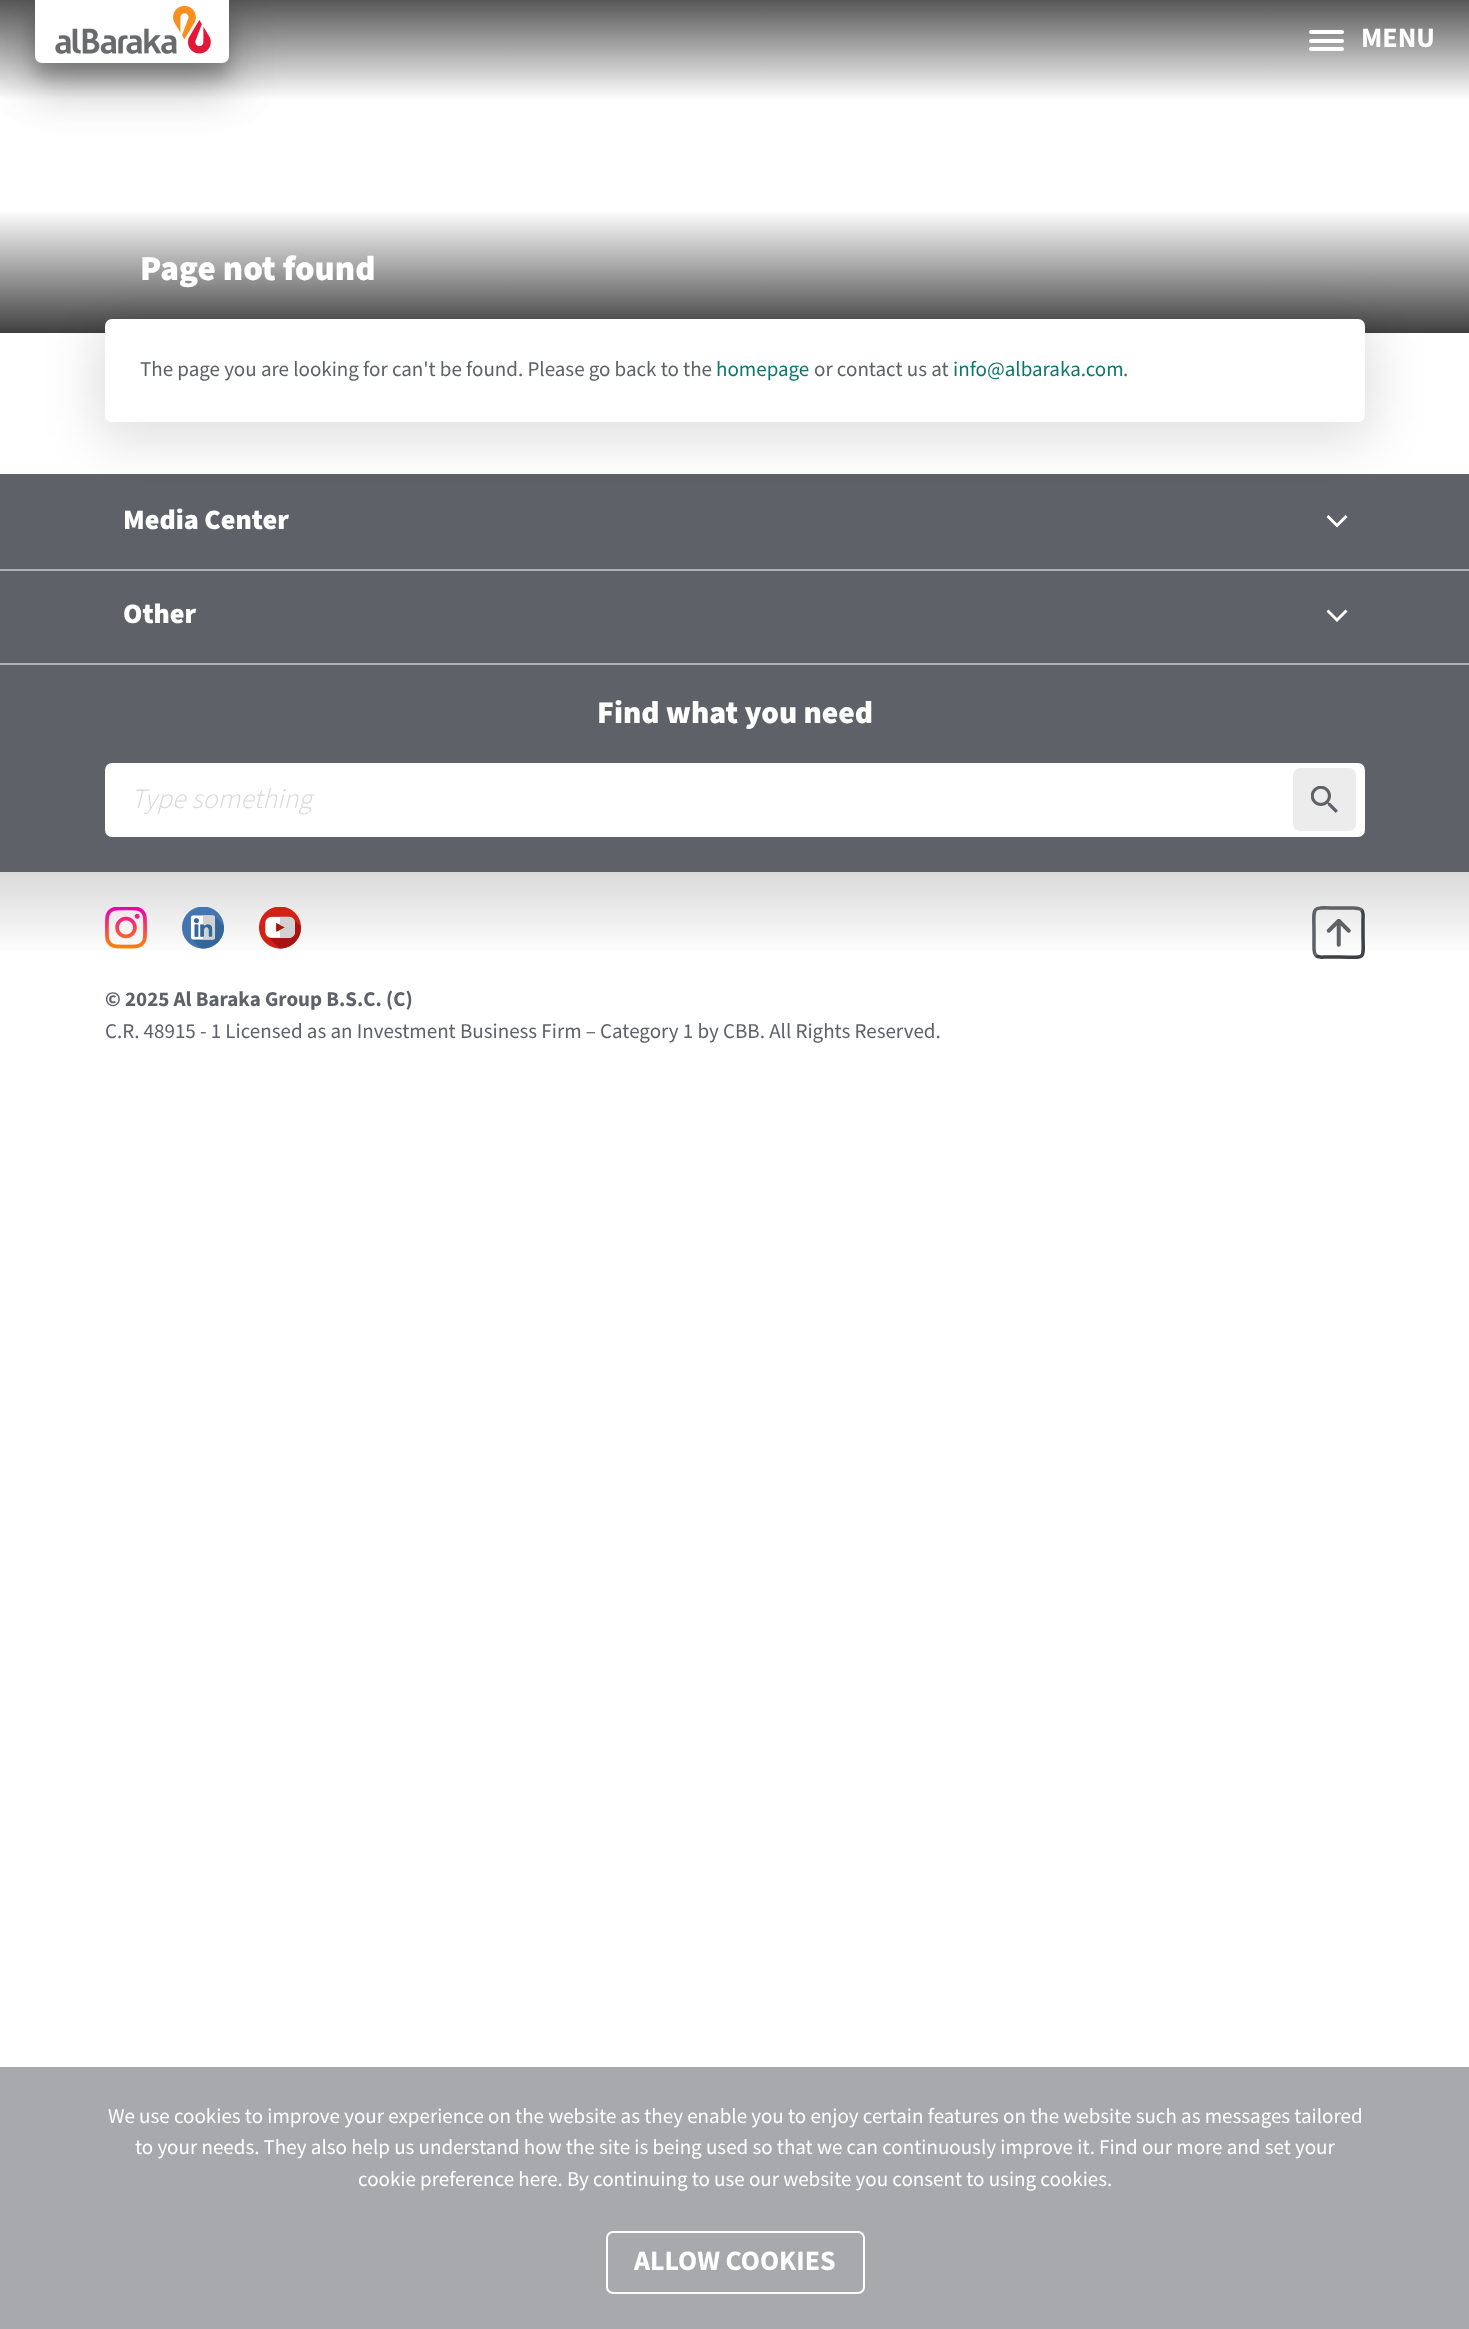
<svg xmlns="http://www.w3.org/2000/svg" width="1469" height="2329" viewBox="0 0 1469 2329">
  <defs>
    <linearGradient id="g1" gradientUnits="userSpaceOnUse" x1="735" y1="0" x2="735" y2="333"><stop offset="0" stop-color="#575757"/><stop offset="0.3" stop-color="#ffffff"/><stop offset="0.63" stop-color="#ffffff"/><stop offset="1" stop-color="#404040"/></linearGradient>
    <filter id="blur1" x="-50%" y="-200%" width="200%" height="500%"><feGaussianBlur stdDeviation="9"/></filter>
    <filter id="blur2" x="-50%" y="-200%" width="200%" height="500%"><feGaussianBlur stdDeviation="26"/></filter>
    <filter id="blur3" x="-50%" y="-200%" width="200%" height="500%"><feGaussianBlur stdDeviation="21"/></filter>
    <linearGradient id="g2" gradientUnits="userSpaceOnUse" x1="735" y1="871" x2="735" y2="1153"><stop offset="0" stop-color="#d9d9d9"/><stop offset="0.3" stop-color="#ffffff"/></linearGradient>
  </defs>
  <rect width="100%" height="100%" fill="#ffffff"/>
  <rect x="0" y="0" width="1469" height="333" fill="url(#g1)"/>
  <rect x="35" y="14" width="194" height="63" rx="7" fill="#000000" fill-opacity="0.2" filter="url(#blur1)"/>
  <rect x="26" y="2" width="212" height="80" rx="16" fill="#000000" fill-opacity="0.12" filter="url(#blur2)"/>
  <rect x="32" y="25" width="201" height="70" rx="11" fill="#000000" fill-opacity="0.14" filter="url(#blur3)"/>
  <path d="M35 0H229V56C229 60 226 63 222 63H42C38 63 35 60 35 56Z" fill="#ffffff"/>
  <image x="55" y="5" width="156" height="49" href="img1.png"/>
  <rect x="1309" y="30" width="35" height="4" rx="2" fill="#ffffff"/>
  <rect x="1309" y="39" width="35" height="4" rx="2" fill="#ffffff"/>
  <rect x="1309" y="47" width="35" height="4" rx="2" fill="#ffffff"/>
  <text x="1361" y="47" font-family="Mada" font-size="28" font-weight="bold" fill="#ffffff">MENU</text>
  <rect x="0" y="474" width="1469" height="398" fill="#5e6167"/>
  <rect x="96" y="320" width="1278" height="121" rx="16" fill="#000000" fill-opacity="0.12" filter="url(#blur2)"/>
  <text x="140" y="280" font-family="Mada" font-size="35" font-weight="900" fill="#ffffff">Page not found</text>
  <rect x="105" y="319" width="1260" height="103" rx="7" fill="#ffffff"/>
  <text x="140" y="376" font-family="Mada" font-size="21" fill="#5e6167">The page you are looking for can't be found. Please go back to the</text>
  <text x="716" y="376" font-family="Mada" font-size="21" fill="#0d776e">homepage</text>
  <text x="814" y="376" font-family="Mada" font-size="21" fill="#5e6167">or contact us at</text>
  <text x="953" y="376" font-family="Mada" font-size="21" fill="#0d776e">info@albaraka.com</text>
  <text x="1123" y="376" font-family="Mada" font-size="21" fill="#5e6167">.</text>
  <text x="123" y="529" font-family="Mada" font-size="28" font-weight="900" fill="#ffffff">Media Center</text>
  <path d="M1337 527.5L1326.5 517L1328.5 515L1337 523.5L1345.5 515L1347.5 517Z" fill="#ffffff"/>
  <rect x="0" y="569" width="1469" height="2" fill="#afb0b3"/>
  <text x="123" y="623" font-family="Mada" font-size="28" font-weight="900" fill="#ffffff">Other</text>
  <path d="M1337 622L1326.5 611.5L1328.5 609.5L1337 618L1345.5 609.5L1347.5 611.5Z" fill="#ffffff"/>
  <rect x="0" y="663" width="1469" height="2" fill="#afb0b3"/>
  <text x="597" y="723" font-family="Mada" font-size="31.5" font-weight="900" fill="#ffffff">Find what you need</text>
  <rect x="105" y="763" width="1260" height="74" rx="7" fill="#ffffff"/>
  <text x="131" y="808" font-family="Mada" font-size="28" font-weight="300" font-style="italic" fill="#d8d8d8">Type something</text>
  <rect x="1293" y="768" width="63" height="63" rx="7" fill="#edecec"/>
  <image x="1311" y="786" width="27" height="27" href="img2.png"/>
  <rect x="0" y="872" width="1469" height="78" fill="url(#g2)"/>
  <path d="M1361.5 910C1364 912.5 1363 917 1363 920V933C1363 961.5 1367.5 957 1339 957H1326C1323 957 1318.5 958 1316 955.5" fill="none" stroke="#3f4145" stroke-width="3.5"/>
  <path d="M1316 955.5C1313.5 953 1314 948.5 1314 945.5V933C1314 904 1310 908 1339 908H1351.5C1354.5 908 1359 907.5 1361.5 910" fill="none" stroke="#5e6167" stroke-width="3.5"/>
  <image x="1326" y="919" width="25" height="28" href="img3.png"/>
  <image x="105" y="907" width="42" height="42" href="img4.png"/>
  <image x="182" y="907" width="42" height="42" href="img5.png"/>
  <image x="259" y="907" width="42" height="42" href="img6.png"/>
  <text x="105" y="1006" font-family="Mada" font-size="21" font-weight="bold" fill="#5e6167">© 2025 Al Baraka Group B.S.C. (C)</text>
  <text x="105" y="1038" font-family="Mada" font-size="21" fill="#5e6167">C.R. 48915 - 1 Licensed as an Investment Business Firm – Category 1 by CBB. All Rights Reserved.</text>
  <rect x="0" y="2067" width="1469" height="262" fill="#a7a9ac"/>
  <text x="108" y="2123" font-family="Mada" font-size="21" fill="#ffffff">We use cookies to improve your experience on the website as they enable you to enjoy certain features on the website such as messages tailored</text>
  <text x="135" y="2154" font-family="Mada" font-size="21" fill="#ffffff">to your needs. They also help us understand how the site is being used so that we can continuously improve it. Find our more and set your</text>
  <text x="358" y="2186" font-family="Mada" font-size="21" fill="#ffffff">cookie preference here. By continuing to use our website you consent to using cookies.</text>
  <rect x="607" y="2232" width="257" height="61" rx="6" fill="none" stroke="#ffffff" stroke-width="2"/>
  <text x="634" y="2270" font-family="Mada" font-size="28" font-weight="bold" fill="#ffffff">ALLOW COOKIES</text>
</svg>
